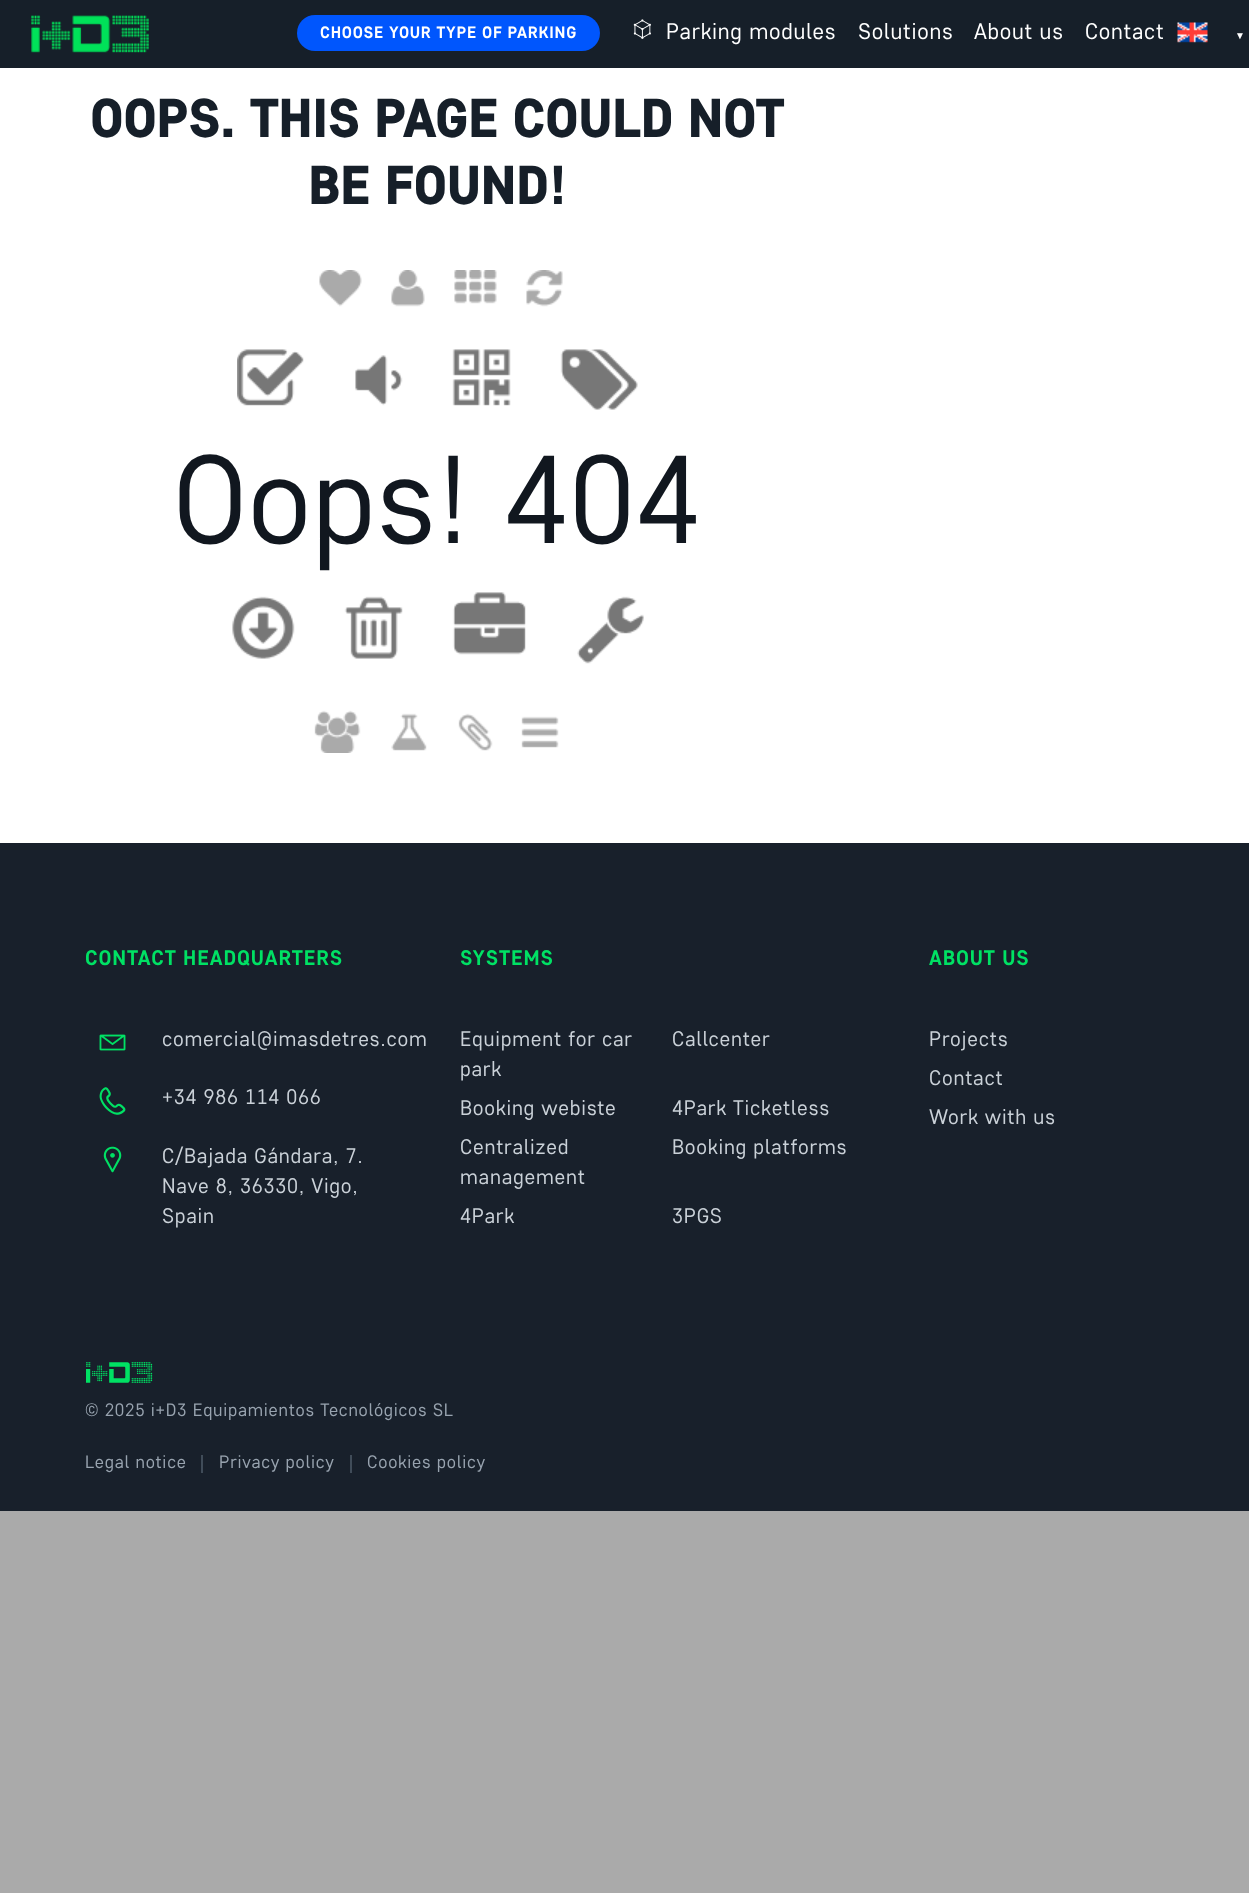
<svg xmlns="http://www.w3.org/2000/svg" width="1249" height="1893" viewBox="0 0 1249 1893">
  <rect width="100%" height="100%" fill="#aaaaaa"/>
  <rect x="0" y="68" width="1249" height="775" fill="#ffffff"/>
  <rect x="0" y="0" width="1249" height="68" fill="#161f29"/>
  <image x="31" y="15" width="118" height="38" href="img1.png"/>
  <rect x="297" y="15" width="303" height="36" rx="18" fill="#0056fd"/>
  <text x="320" y="38" font-family="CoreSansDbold" font-size="16.5" letter-spacing="0.75" fill="#ffffff">CHOOSE YOUR TYPE OF PARKING</text>
  <image x="633" y="19" width="18" height="20" href="img2.png"/>
  <text x="666" y="39" font-family="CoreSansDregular" font-size="22.5" letter-spacing="0.75" fill="#ffffff">Parking modules</text>
  <text x="858" y="39" font-family="CoreSansDregular" font-size="22.5" letter-spacing="0.75" fill="#ffffff">Solutions</text>
  <text x="974" y="39" font-family="CoreSansDregular" font-size="22.5" letter-spacing="0.75" fill="#ffffff">About us</text>
  <text x="1085" y="39" font-family="CoreSansDregular" font-size="22.5" letter-spacing="0.75" fill="#ffffff">Contact</text>
  <image x="1177" y="22" width="31" height="21" href="img3.png"/>
  <text x="1235" y="39" font-family="Liberation Sans" font-size="10" letter-spacing="0.75" fill="#ffffff">▼</text>
  <text x="90" y="137" font-family="CoreSansDbold" font-size="52.5" font-weight="bold" letter-spacing="0.9" fill="#161f29">OOPS. THIS PAGE COULD NOT</text>
  <text x="308" y="204" font-family="CoreSansDbold" font-size="52.5" font-weight="bold" letter-spacing="0.9" fill="#161f29">BE FOUND!</text>
  <image x="237" y="270" width="401" height="140" href="img4.png"/>
  <text x="173" y="543" font-family="CoreSansDregular" font-size="124.5" letter-spacing="0.75" fill="#11171f">Oops! 404</text>
  <image x="232" y="592" width="412" height="161" href="img5.png"/>
  <rect x="0" y="843" width="1249" height="668" fill="#18202b"/>
  <text x="85" y="965" font-family="CoreSansDbold" font-size="21" letter-spacing="0.9" fill="#00e164">CONTACT HEADQUARTERS</text>
  <image x="99" y="1034" width="27" height="17" href="img6.png"/>
  <text x="162" y="1046" font-family="CoreSansDregular" font-size="21" letter-spacing="0.75" fill="#cad1d8">comercial@imasdetres.com</text>
  <image x="99" y="1087" width="27" height="28" href="img7.png"/>
  <text x="162" y="1104" font-family="CoreSansDregular" font-size="21" letter-spacing="0.75" fill="#cad1d8">+34 986 114 066</text>
  <image x="103" y="1146" width="19" height="27" href="img8.png"/>
  <text x="162" y="1163" font-family="CoreSansDregular" font-size="21" letter-spacing="0.75" fill="#cad1d8">C/Bajada Gándara, 7.</text>
  <text x="162" y="1193" font-family="CoreSansDregular" font-size="21" letter-spacing="0.75" fill="#cad1d8">Nave 8, 36330, Vigo,</text>
  <text x="162" y="1223" font-family="CoreSansDregular" font-size="21" letter-spacing="0.75" fill="#cad1d8">Spain</text>
  <text x="460" y="965" font-family="CoreSansDbold" font-size="21" letter-spacing="0.9" fill="#00e164">SYSTEMS</text>
  <text x="460" y="1046" font-family="CoreSansDregular" font-size="21" letter-spacing="0.75" fill="#cad1d8">Equipment for car</text>
  <text x="460" y="1076" font-family="CoreSansDregular" font-size="21" letter-spacing="0.75" fill="#cad1d8">park</text>
  <text x="672" y="1046" font-family="CoreSansDregular" font-size="21" letter-spacing="0.75" fill="#cad1d8">Callcenter</text>
  <text x="460" y="1115" font-family="CoreSansDregular" font-size="21" letter-spacing="0.75" fill="#cad1d8">Booking webiste</text>
  <text x="672" y="1115" font-family="CoreSansDregular" font-size="21" letter-spacing="0.75" fill="#cad1d8">4Park Ticketless</text>
  <text x="460" y="1154" font-family="CoreSansDregular" font-size="21" letter-spacing="0.75" fill="#cad1d8">Centralized</text>
  <text x="460" y="1184" font-family="CoreSansDregular" font-size="21" letter-spacing="0.75" fill="#cad1d8">management</text>
  <text x="672" y="1154" font-family="CoreSansDregular" font-size="21" letter-spacing="0.75" fill="#cad1d8">Booking platforms</text>
  <text x="460" y="1223" font-family="CoreSansDregular" font-size="21" letter-spacing="0.75" fill="#cad1d8">4Park</text>
  <text x="672" y="1223" font-family="CoreSansDregular" font-size="21" letter-spacing="0.75" fill="#cad1d8">3PGS</text>
  <text x="929" y="965" font-family="CoreSansDbold" font-size="21" letter-spacing="0.9" fill="#00e164">ABOUT US</text>
  <text x="929" y="1046" font-family="CoreSansDregular" font-size="21" letter-spacing="0.75" fill="#cad1d8">Projects</text>
  <text x="929" y="1085" font-family="CoreSansDregular" font-size="21" letter-spacing="0.75" fill="#cad1d8">Contact</text>
  <text x="929" y="1124" font-family="CoreSansDregular" font-size="21" letter-spacing="0.75" fill="#cad1d8">Work with us</text>
  <image x="86" y="1362" width="67" height="21" href="img9.png"/>
  <text x="85" y="1416" font-family="CoreSansDregular" font-size="18" letter-spacing="0.75" fill="#98a3af">© 2025 i+D3 Equipamientos Tecnológicos SL</text>
  <text x="85" y="1468" font-family="CoreSansDregular" font-size="18" letter-spacing="0.75" fill="#98a3af">Legal notice</text>
  <rect x="201" y="1455" width="2" height="18" fill="#404c59"/>
  <text x="219" y="1468" font-family="CoreSansDregular" font-size="18" letter-spacing="0.75" fill="#98a3af">Privacy policy</text>
  <rect x="350" y="1455" width="2" height="18" fill="#404c59"/>
  <text x="367" y="1468" font-family="CoreSansDregular" font-size="18" letter-spacing="0.75" fill="#98a3af">Cookies policy</text>
</svg>
